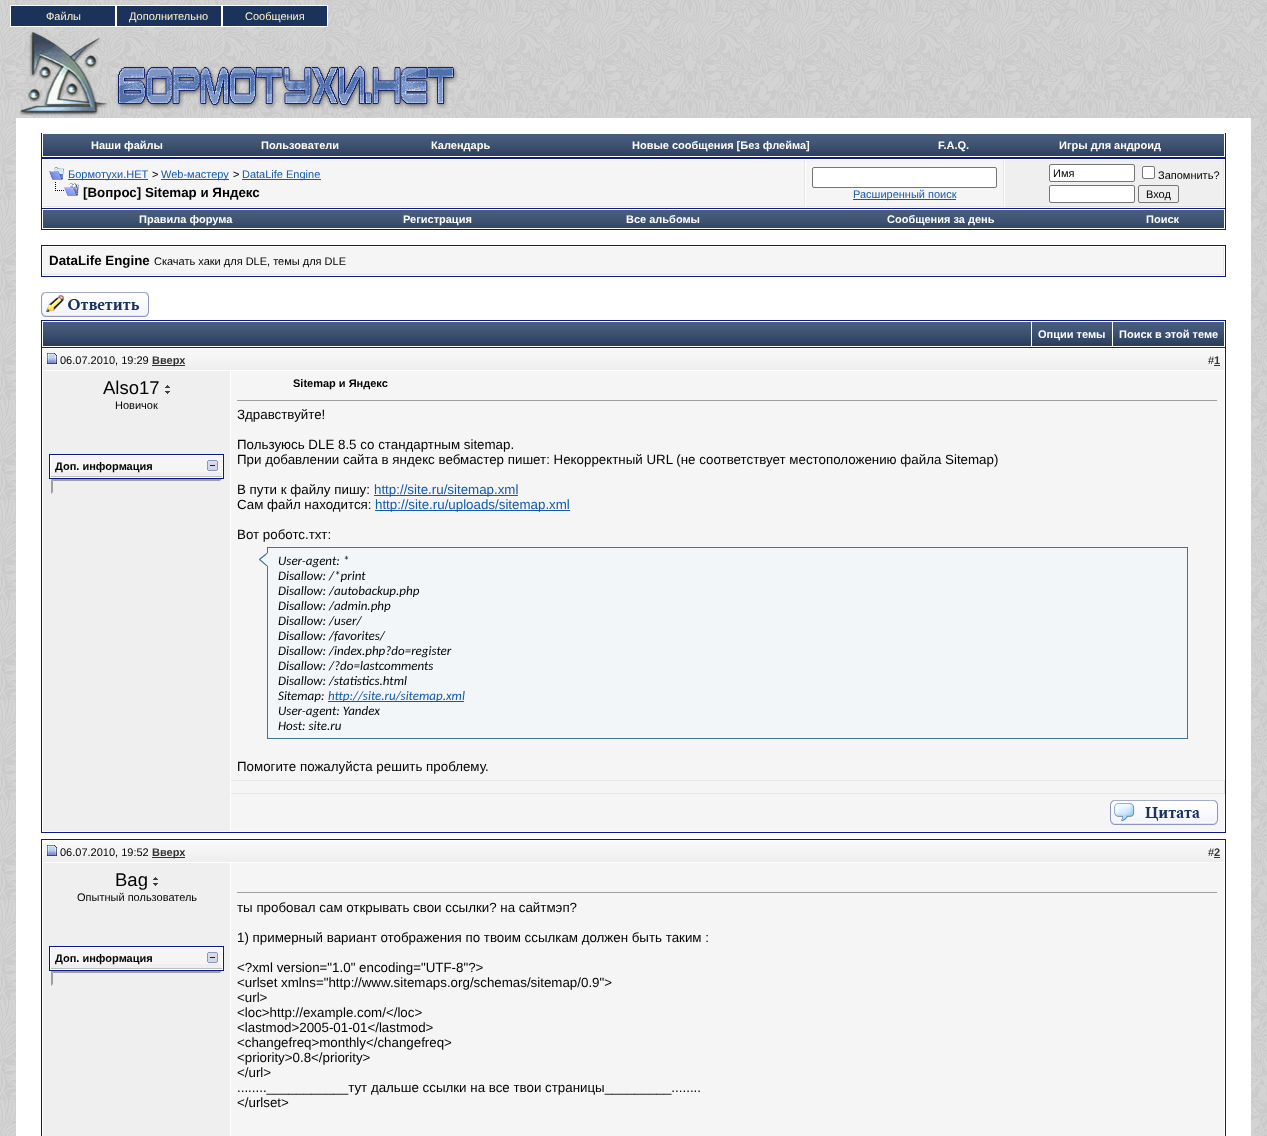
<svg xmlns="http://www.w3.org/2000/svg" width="1267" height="1136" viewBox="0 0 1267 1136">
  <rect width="100%" height="100%" fill="#ffffff"/>
  <image x="0" y="0" width="1267" height="1136" href="img1.png"/>
  <rect x="10.5" y="5.5" width="105" height="21" fill="#1b335b" stroke="#ffffff"/>
  <text x="46" y="20" font-family="Liberation Sans" font-size="11" fill="#fff4ca">Файлы</text>
  <rect x="116.5" y="5.5" width="105" height="21" fill="#1b335b" stroke="#ffffff"/>
  <text x="129" y="20" font-family="Liberation Sans" font-size="11" fill="#fff4ca">Дополнительно</text>
  <rect x="222.5" y="5.5" width="105" height="21" fill="#1b335b" stroke="#ffffff"/>
  <text x="245" y="20" font-family="Liberation Sans" font-size="11" fill="#fff4ca">Сообщения</text>
  <image x="16" y="30" width="454" height="88" href="img2.png"/>
  <rect x="16" y="118" width="1235" height="1018" fill="#ffffff"/>
  <rect x="1225" y="133" width="1" height="25" fill="#0b198c"/>
  <rect x="41" y="157" width="1185" height="1" fill="#0b198c"/>
  <rect x="41" y="133" width="1" height="25" fill="#0b198c"/>
  <image x="43" y="134" width="168" height="22" href="img3.png"/>
  <text x="91" y="149" font-family="Liberation Sans" font-size="11" font-weight="bold" fill="#ffffff">Наши файлы</text>
  <image x="211" y="134" width="179" height="22" href="img4.png"/>
  <text x="261" y="149" font-family="Liberation Sans" font-size="11" font-weight="bold" fill="#ffffff">Пользователи</text>
  <image x="390" y="134" width="142" height="22" href="img5.png"/>
  <text x="431" y="149" font-family="Liberation Sans" font-size="11" font-weight="bold" fill="#ffffff">Календарь</text>
  <image x="532" y="134" width="378" height="22" href="img6.png"/>
  <text x="632" y="149" font-family="Liberation Sans" font-size="11" font-weight="bold" fill="#ffffff">Новые сообщения [Без флейма]</text>
  <image x="910" y="134" width="86" height="22" href="img7.png"/>
  <text x="938" y="149" font-family="Liberation Sans" font-size="11" font-weight="bold" fill="#ffffff">F.A.Q.</text>
  <image x="996" y="134" width="228" height="22" href="img8.png"/>
  <text x="1059" y="149" font-family="Liberation Sans" font-size="11" font-weight="bold" fill="#ffffff">Игры для андроид</text>
  <rect x="41.5" y="158.5" width="1184" height="50" fill="none" stroke="#0b198c"/>
  <rect x="43" y="160" width="761" height="46" fill="#f5f5f5"/>
  <rect x="804" y="160" width="1" height="47" fill="#e6e6e6"/>
  <rect x="43" y="206" width="762" height="1" fill="#e6e6e6"/>
  <image x="49" y="167" width="15" height="13" href="img9.png"/>
  <rect x="68" y="179" width="80" height="1" fill="#1359ae"/>
  <text x="68" y="178" font-family="Liberation Sans" font-size="11" fill="#1359ae">Бормотухи.НЕТ</text>
  <text x="152" y="178" font-family="Liberation Sans" font-size="11" fill="#000000">&gt;</text>
  <rect x="161" y="179" width="68" height="1" fill="#1359ae"/>
  <text x="161" y="178" font-family="Liberation Sans" font-size="11" fill="#1359ae">Web-мастеру</text>
  <text x="233" y="178" font-family="Liberation Sans" font-size="11" fill="#000000">&gt;</text>
  <rect x="242" y="179" width="79" height="1" fill="#1359ae"/>
  <text x="242" y="178" font-family="Liberation Sans" font-size="11" fill="#1359ae">DataLife Engine</text>
  <image x="55" y="182" width="24" height="14" href="img10.png"/>
  <text x="83" y="197" font-family="Liberation Sans" font-size="13.33" font-weight="bold" fill="#000000">[Вопрос] Sitemap и Яндекс</text>
  <rect x="806" y="160" width="197" height="46" fill="#f5f5f5"/>
  <rect x="1003" y="160" width="1" height="47" fill="#e6e6e6"/>
  <rect x="806" y="206" width="198" height="1" fill="#e6e6e6"/>
  <rect x="812.5" y="167.5" width="184" height="20" rx="1.5" fill="#ffffff" stroke="#767676"/>
  <rect x="853" y="199" width="103" height="1" fill="#1359ae"/>
  <text x="853" y="198" font-family="Liberation Sans" font-size="11" fill="#1359ae">Расширенный поиск</text>
  <rect x="1005" y="160" width="218" height="46" fill="#efefef"/>
  <rect x="1223" y="160" width="1" height="47" fill="#e6e6e6"/>
  <rect x="1005" y="206" width="219" height="1" fill="#e0e0e0"/>
  <rect x="1049.5" y="164.5" width="85" height="17" rx="1.5" fill="#ffffff" stroke="#767676"/>
  <text x="1053" y="177" font-family="Liberation Sans" font-size="11" fill="#000000">Имя</text>
  <rect x="1142.5" y="166.5" width="12" height="12" rx="1.5" fill="#ffffff" stroke="#767676"/>
  <text x="1158" y="179" font-family="Liberation Sans" font-size="11" fill="#000000">Запомнить?</text>
  <rect x="1049.5" y="185.5" width="85" height="17" rx="1.5" fill="#ffffff" stroke="#767676"/>
  <rect x="1138.5" y="185.5" width="40" height="17" rx="1.5" fill="none" stroke="#767676"/>
  <text x="1146" y="198" font-family="Liberation Sans" font-size="11" fill="#000000">Вход</text>
  <rect x="1225" y="209" width="1" height="21" fill="#0b198c"/>
  <rect x="41" y="229" width="1185" height="1" fill="#0b198c"/>
  <rect x="41" y="209" width="1" height="21" fill="#0b198c"/>
  <image x="43" y="210" width="285" height="18" href="img11.png"/>
  <text x="139" y="223" font-family="Liberation Sans" font-size="11" font-weight="bold" fill="#ffffff">Правила форума</text>
  <image x="328" y="210" width="218" height="18" href="img12.png"/>
  <text x="403" y="223" font-family="Liberation Sans" font-size="11" font-weight="bold" fill="#ffffff">Регистрация</text>
  <image x="546" y="210" width="233" height="18" href="img13.png"/>
  <text x="626" y="223" font-family="Liberation Sans" font-size="11" font-weight="bold" fill="#ffffff">Все альбомы</text>
  <image x="779" y="210" width="323" height="18" href="img14.png"/>
  <text x="887" y="223" font-family="Liberation Sans" font-size="11" font-weight="bold" fill="#ffffff">Сообщения за день</text>
  <image x="1102" y="210" width="122" height="18" href="img15.png"/>
  <text x="1146" y="223" font-family="Liberation Sans" font-size="11" font-weight="bold" fill="#ffffff">Поиск</text>
  <rect x="41.5" y="245.5" width="1184" height="31" fill="none" stroke="#0b198c"/>
  <rect x="43" y="247" width="1180" height="27" fill="#f5f5f5"/>
  <rect x="1223" y="247" width="1" height="28" fill="#e6e6e6"/>
  <rect x="43" y="274" width="1181" height="1" fill="#e6e6e6"/>
  <text x="49" y="265" font-family="Liberation Sans" font-size="13.33" font-weight="bold" fill="#000000">DataLife Engine</text>
  <text x="154" y="265" font-family="Liberation Sans" font-size="11" fill="#000000">Скачать хаки для DLE, темы для DLE</text>
  <image x="41" y="292" width="108" height="25" href="img16.png"/>
  <rect x="41" y="320" width="1185" height="1" fill="#0b198c"/>
  <rect x="1225" y="320" width="1" height="27" fill="#0b198c"/>
  <rect x="41" y="320" width="1" height="27" fill="#0b198c"/>
  <image x="43" y="322" width="988" height="24" href="img17.png"/>
  <image x="1032" y="322" width="80" height="24" href="img18.png"/>
  <text x="1038" y="338" font-family="Liberation Sans" font-size="11" font-weight="bold" fill="#ffffff">Опции темы</text>
  <image x="1113" y="322" width="111" height="24" href="img19.png"/>
  <text x="1119" y="338" font-family="Liberation Sans" font-size="11" font-weight="bold" fill="#ffffff">Поиск в этой теме</text>
  <rect x="41.5" y="347.5" width="1184" height="485" fill="none" stroke="#0b198c"/>
  <image x="43" y="349" width="188" height="21" href="img20.png"/>
  <image x="47" y="353" width="10" height="11" href="img21.png"/>
  <text x="60" y="364" font-family="Liberation Sans" font-size="11" fill="#000000">06.07.2010, 19:29</text>
  <rect x="152" y="365" width="33" height="1" fill="#333333"/>
  <text x="152" y="364" font-family="Liberation Sans" font-size="11" font-weight="bold" fill="#333333">Вверх</text>
  <image x="231" y="349" width="993" height="21" href="img22.png"/>
  <text x="1208" y="364" font-family="Liberation Sans" font-size="11" fill="#000000">#</text>
  <text x="1214" y="364" font-family="Liberation Sans" font-size="11" font-weight="bold" fill="#333333">1</text>
  <rect x="1214" y="365" width="6" height="1" fill="#333333"/>
  <rect x="43" y="371" width="187" height="460" fill="#efefef"/>
  <text x="103" y="394" font-family="Liberation Sans" font-size="18.5" fill="#000000">Also17</text>
  <image x="165" y="385" width="5" height="9" href="img23.png"/>
  <text x="115" y="409" font-family="Liberation Sans" font-size="11" fill="#000000">Новичок</text>
  <rect x="49.5" y="454.5" width="174" height="24" fill="#ffffff" stroke="#0b198c"/>
  <rect x="51" y="456" width="171" height="16" fill="#f5f5f5"/>
  <rect x="51" y="472" width="171" height="4" fill="#efefef"/>
  <rect x="51" y="476" width="171" height="1" fill="#bebebe"/>
  <text x="55" y="470" font-family="Liberation Sans" font-size="11" font-weight="bold" fill="#000000">Доп. информация</text>
  <image x="207" y="460" width="11" height="11" href="img24.png"/>
  <path d="M51 479H222L220 481H53Z" fill="#9f9f9f"/>
  <path d="M222 479V494L220 492V481Z" fill="#efefef"/>
  <path d="M51 494V479L53 481V492Z" fill="#9f9f9f"/>
  <rect x="231" y="371" width="993" height="409" fill="#f5f5f5"/>
  <rect x="231" y="780" width="994" height="1" fill="#e6e6e6"/>
  <text x="293" y="387" font-family="Liberation Sans" font-size="11" font-weight="bold" fill="#000000">Sitemap и Яндекс</text>
  <rect x="237" y="400" width="981" height="1" fill="#9f9f9f"/>
  <rect x="1217" y="400" width="1" height="1" fill="#eeeeee"/>
  <text x="237" y="419" font-family="Liberation Sans" font-size="13.33" fill="#000000">Здравствуйте!</text>
  <text x="237" y="449" font-family="Liberation Sans" font-size="13.33" fill="#000000">Пользуюсь DLE 8.5 со стандартным sitemap.</text>
  <text x="237" y="464" font-family="Liberation Sans" font-size="13.33" fill="#000000">При добавлении сайта в яндекс вебмастер пишет: Некорректный URL (не соответствует местоположению файла Sitemap)</text>
  <text x="237" y="494" font-family="Liberation Sans" font-size="13.33" fill="#000000">В пути к файлу пишу:</text>
  <rect x="374" y="495" width="144" height="1" fill="#1359ae"/>
  <text x="374" y="494" font-family="Liberation Sans" font-size="13.33" fill="#1359ae">http://site.ru/sitemap.xml</text>
  <text x="237" y="509" font-family="Liberation Sans" font-size="13.33" fill="#000000">Сам файл находится:</text>
  <rect x="375" y="510" width="195" height="1" fill="#1359ae"/>
  <text x="375" y="509" font-family="Liberation Sans" font-size="13.33" fill="#1359ae">http://site.ru/uploads/sitemap.xml</text>
  <text x="237" y="539" font-family="Liberation Sans" font-size="13.33" fill="#000000">Вот роботс.тхт:</text>
  <rect x="267.5" y="547.5" width="920" height="191" fill="#f2f6f8" stroke="#417394"/>
  <image x="259" y="553" width="9" height="13" href="img25.png"/>
  <text x="278" y="565" font-family="Carlito" font-size="13" font-style="italic" fill="#000000">User-agent: *</text>
  <text x="278" y="580" font-family="Carlito" font-size="13" font-style="italic" fill="#000000">Disallow: /*print</text>
  <text x="278" y="595" font-family="Carlito" font-size="13" font-style="italic" fill="#000000">Disallow: /autobackup.php</text>
  <text x="278" y="610" font-family="Carlito" font-size="13" font-style="italic" fill="#000000">Disallow: /admin.php</text>
  <text x="278" y="625" font-family="Carlito" font-size="13" font-style="italic" fill="#000000">Disallow: /user/</text>
  <text x="278" y="640" font-family="Carlito" font-size="13" font-style="italic" fill="#000000">Disallow: /favorites/</text>
  <text x="278" y="655" font-family="Carlito" font-size="13" font-style="italic" fill="#000000">Disallow: /index.php?do=register</text>
  <text x="278" y="670" font-family="Carlito" font-size="13" font-style="italic" fill="#000000">Disallow: /?do=lastcomments</text>
  <text x="278" y="685" font-family="Carlito" font-size="13" font-style="italic" fill="#000000">Disallow: /statistics.html</text>
  <text x="278" y="700" font-family="Carlito" font-size="13" font-style="italic" fill="#000000">Sitemap:</text>
  <rect x="328" y="701" width="136" height="1" fill="#1359ae"/>
  <text x="328" y="700" font-family="Carlito" font-size="13" font-style="italic" fill="#1359ae">http://site.ru/sitemap.xml</text>
  <text x="278" y="715" font-family="Carlito" font-size="13" font-style="italic" fill="#000000">User-agent: Yandex</text>
  <text x="278" y="730" font-family="Carlito" font-size="13" font-style="italic" fill="#000000">Host: site.ru</text>
  <text x="237" y="771" font-family="Liberation Sans" font-size="13.33" fill="#000000">Помогите пожалуйста решить проблему.</text>
  <rect x="231" y="781" width="993" height="12" fill="#f5f5f5"/>
  <rect x="1224" y="781" width="1" height="13" fill="#e6e6e6"/>
  <rect x="231" y="793" width="994" height="1" fill="#e6e6e6"/>
  <rect x="231" y="794" width="993" height="37" fill="#f5f5f5"/>
  <image x="1110" y="800" width="108" height="25" href="img26.png"/>
  <rect x="41.5" y="839.5" width="1184" height="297" fill="none" stroke="#0b198c"/>
  <image x="43" y="841" width="188" height="21" href="img20.png"/>
  <image x="47" y="845" width="10" height="11" href="img21.png"/>
  <text x="60" y="856" font-family="Liberation Sans" font-size="11" fill="#000000">06.07.2010, 19:52</text>
  <rect x="152" y="857" width="33" height="1" fill="#333333"/>
  <text x="152" y="856" font-family="Liberation Sans" font-size="11" font-weight="bold" fill="#333333">Вверх</text>
  <image x="231" y="841" width="993" height="21" href="img22.png"/>
  <text x="1208" y="856" font-family="Liberation Sans" font-size="11" fill="#000000">#</text>
  <text x="1214" y="856" font-family="Liberation Sans" font-size="11" font-weight="bold" fill="#333333">2</text>
  <rect x="1214" y="857" width="6" height="1" fill="#333333"/>
  <rect x="43" y="863" width="187" height="273" fill="#efefef"/>
  <text x="115" y="886" font-family="Liberation Sans" font-size="18.5" fill="#000000">Bag</text>
  <image x="153" y="877" width="5" height="9" href="img23.png"/>
  <text x="77" y="901" font-family="Liberation Sans" font-size="11" fill="#000000">Опытный пользователь</text>
  <rect x="49.5" y="946.5" width="174" height="24" fill="#ffffff" stroke="#0b198c"/>
  <rect x="51" y="948" width="171" height="16" fill="#f5f5f5"/>
  <rect x="51" y="964" width="171" height="4" fill="#efefef"/>
  <rect x="51" y="968" width="171" height="1" fill="#bebebe"/>
  <text x="55" y="962" font-family="Liberation Sans" font-size="11" font-weight="bold" fill="#000000">Доп. информация</text>
  <image x="207" y="952" width="11" height="11" href="img24.png"/>
  <path d="M51 971H222L220 973H53Z" fill="#9f9f9f"/>
  <path d="M222 971V986L220 984V973Z" fill="#efefef"/>
  <path d="M51 986V971L53 973V984Z" fill="#9f9f9f"/>
  <rect x="231" y="863" width="993" height="273" fill="#f5f5f5"/>
  <rect x="237" y="892" width="981" height="1" fill="#9f9f9f"/>
  <rect x="1217" y="892" width="1" height="1" fill="#eeeeee"/>
  <text x="237" y="912" font-family="Liberation Sans" font-size="13.33" fill="#000000">ты пробовал сам открывать свои ссылки? на сайтмэп?</text>
  <text x="237" y="942" font-family="Liberation Sans" font-size="13.33" fill="#000000">1) примерный вариант отображения по твоим ссылкам должен быть таким :</text>
  <text x="237" y="972" font-family="Liberation Sans" font-size="13.33" fill="#000000">&lt;?xml version="1.0" encoding="UTF-8"?&gt;</text>
  <text x="237" y="987" font-family="Liberation Sans" font-size="13.33" fill="#000000">&lt;urlset xmlns="http://www.sitemaps.org/schemas/sitemap/0.9"&gt;</text>
  <text x="237" y="1002" font-family="Liberation Sans" font-size="13.33" fill="#000000">&lt;url&gt;</text>
  <text x="237" y="1017" font-family="Liberation Sans" font-size="13.33" fill="#000000">&lt;loc&gt;http://example.com/&lt;/loc&gt;</text>
  <text x="237" y="1032" font-family="Liberation Sans" font-size="13.33" fill="#000000">&lt;lastmod&gt;2005-01-01&lt;/lastmod&gt;</text>
  <text x="237" y="1047" font-family="Liberation Sans" font-size="13.33" fill="#000000">&lt;changefreq&gt;monthly&lt;/changefreq&gt;</text>
  <text x="237" y="1062" font-family="Liberation Sans" font-size="13.33" fill="#000000">&lt;priority&gt;0.8&lt;/priority&gt;</text>
  <text x="237" y="1077" font-family="Liberation Sans" font-size="13.33" fill="#000000">&lt;/url&gt;</text>
  <text x="237" y="1092" font-family="Liberation Sans" font-size="13.33" fill="#000000">........___________тут дальше ссылки на все твои страницы_________........</text>
  <text x="237" y="1107" font-family="Liberation Sans" font-size="13.33" fill="#000000">&lt;/urlset&gt;</text>
</svg>
